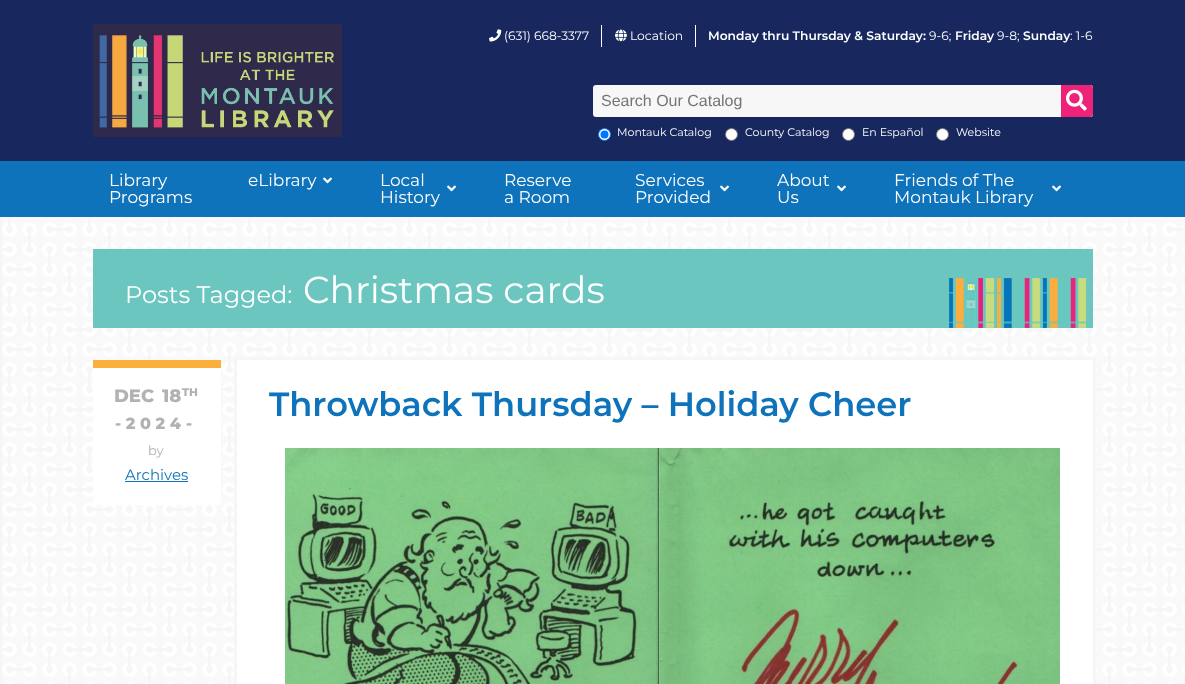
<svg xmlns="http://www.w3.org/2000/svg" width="1185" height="684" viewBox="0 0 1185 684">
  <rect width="100%" height="100%" fill="#f6f6f6"/>
  <image x="2" y="217" width="1183" height="467" href="img1.png"/>
  <rect x="0" y="0" width="1185" height="161" fill="#18285f"/>
  <image x="93" y="24" width="249" height="113" href="img2.png"/>
  <rect x="601" y="25" width="1" height="22" fill="#ffffff"/>
  <image x="489" y="29" width="13" height="13" href="img3.png"/>
  <text x="504" y="40" font-family="Montserrat" font-size="12.25" fill="#ffffff">(631) 668-3377</text>
  <rect x="695" y="25" width="1" height="22" fill="#ffffff"/>
  <image x="615" y="29" width="12" height="13" href="img4.png"/>
  <text x="630" y="40" font-family="Montserrat" font-size="12.25" fill="#ffffff">Location</text>
  <text x="708" y="40" font-family="Montserrat" font-size="12.25" font-weight="600" fill="#ffffff">Monday thru Thursday &amp; Saturday:</text>
  <text x="929" y="40" font-family="Montserrat" font-size="12.25" fill="#ffffff">9-6;</text>
  <text x="955" y="40" font-family="Montserrat" font-size="12.25" font-weight="600" fill="#ffffff">Friday</text>
  <text x="997" y="40" font-family="Montserrat" font-size="12.25" fill="#ffffff">9-8;</text>
  <text x="1023" y="40" font-family="Montserrat" font-size="12.25" font-weight="600" fill="#ffffff">Sunday</text>
  <text x="1070" y="40" font-family="Montserrat" font-size="12.25" fill="#ffffff">: 1-6</text>
  <rect x="593" y="85" width="500" height="32" rx="3" fill="#f7f7f7"/>
  <text x="601" y="106" font-family="Liberation Sans" font-size="16" fill="#757575">Search Our Catalog</text>
  <path d="M1061 85H1090C1091.5 85 1093 86.5 1093 88V114C1093 115.5 1091.5 117 1090 117H1061Z" fill="#ec2379"/>
  <image x="1066" y="89" width="21" height="22" href="img5.png"/>
  <circle cx="604.5" cy="134.5" r="6" fill="#ffffff" stroke="#0075ff"/>
  <circle cx="604.5" cy="134.5" r="4" fill="#0075ff"/>
  <text x="617" y="136" font-family="Montserrat" font-size="11" fill="#ffffff">Montauk Catalog</text>
  <circle cx="731.5" cy="134.5" r="6" fill="#ffffff" stroke="#767676"/>
  <text x="745" y="136" font-family="Montserrat" font-size="11" fill="#ffffff">County Catalog</text>
  <circle cx="848.5" cy="134.5" r="6" fill="#ffffff" stroke="#767676"/>
  <text x="862" y="136" font-family="Montserrat" font-size="11" fill="#ffffff">En Español</text>
  <circle cx="942.5" cy="134.5" r="6" fill="#ffffff" stroke="#767676"/>
  <text x="956" y="136" font-family="Montserrat" font-size="11" fill="#ffffff">Website</text>
  <rect x="0" y="161" width="1185" height="56" fill="#0e73ba"/>
  <text x="109" y="186" font-family="Montserrat" font-size="17" fill="#ffffff">Library</text>
  <text x="109" y="203" font-family="Montserrat" font-size="17" fill="#ffffff">Programs</text>
  <text x="248" y="186" font-family="Montserrat" font-size="17" fill="#ffffff">eLibrary</text>
  <image x="323" y="177" width="9" height="7" href="img6.png"/>
  <text x="380" y="186" font-family="Montserrat" font-size="17" fill="#ffffff">Local</text>
  <image x="447" y="185" width="9" height="7" href="img6.png"/>
  <text x="380" y="203" font-family="Montserrat" font-size="17" fill="#ffffff">History</text>
  <text x="504" y="186" font-family="Montserrat" font-size="17" fill="#ffffff">Reserve</text>
  <text x="504" y="203" font-family="Montserrat" font-size="17" fill="#ffffff">a Room</text>
  <text x="635" y="186" font-family="Montserrat" font-size="17" fill="#ffffff">Services</text>
  <image x="720" y="185" width="9" height="7" href="img6.png"/>
  <text x="635" y="203" font-family="Montserrat" font-size="17" fill="#ffffff">Provided</text>
  <text x="777" y="186" font-family="Montserrat" font-size="17" fill="#ffffff">About</text>
  <image x="837" y="185" width="9" height="7" href="img6.png"/>
  <text x="777" y="203" font-family="Montserrat" font-size="17" fill="#ffffff">Us</text>
  <text x="894" y="186" font-family="Montserrat" font-size="17" fill="#ffffff">Friends of The</text>
  <image x="1052" y="185" width="9" height="7" href="img6.png"/>
  <text x="894" y="203" font-family="Montserrat" font-size="17" fill="#ffffff">Montauk Library</text>
  <rect x="93" y="249" width="1000" height="79" fill="#6ac6be"/>
  <image x="949" y="278" width="138" height="50" href="img7.png"/>
  <text x="125" y="303" font-family="Montserrat" font-size="24" fill="#ffffff">Posts Tagged:</text>
  <text x="303" y="303" font-family="Montserrat" font-size="37.5" fill="#ffffff">Christmas cards</text>
  <rect x="235.5" y="358.5" width="859" height="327" fill="none" stroke="#f6f6f6" stroke-width="3"/>
  <rect x="237" y="360" width="856" height="324" fill="#ffffff"/>
  <rect x="93" y="368" width="128" height="137" fill="#ffffff"/>
  <rect x="93" y="360" width="128" height="8" fill="#fab03b"/>
  <text x="114" y="402" font-family="Montserrat" font-size="18" font-weight="800" fill="#b2b2b2">DEC</text>
  <text x="162" y="402" font-family="Montserrat" font-size="18" font-weight="800" fill="#b2b2b2">18</text>
  <text x="182" y="396" font-family="Montserrat" font-size="11" font-weight="800" fill="#b2b2b2">TH</text>
  <text x="115" y="429" font-family="Montserrat" font-size="16" font-weight="800" letter-spacing="4.75" fill="#b2b2b2">-2024-</text>
  <text x="148" y="455" font-family="Montserrat" font-size="13" fill="#b2b2b2">by</text>
  <text x="125" y="480" font-family="Montserrat" font-size="15" fill="#0e73ba">Archives</text>
  <rect x="125" y="481" width="63" height="1" fill="#0e73ba"/>
  <text x="269" y="416" font-family="Montserrat" font-size="33.7" font-weight="600" fill="#0e73ba">Throwback Thursday – Holiday Cheer</text>
  <image x="285" y="448" width="775" height="236" href="img8.png"/>
</svg>
